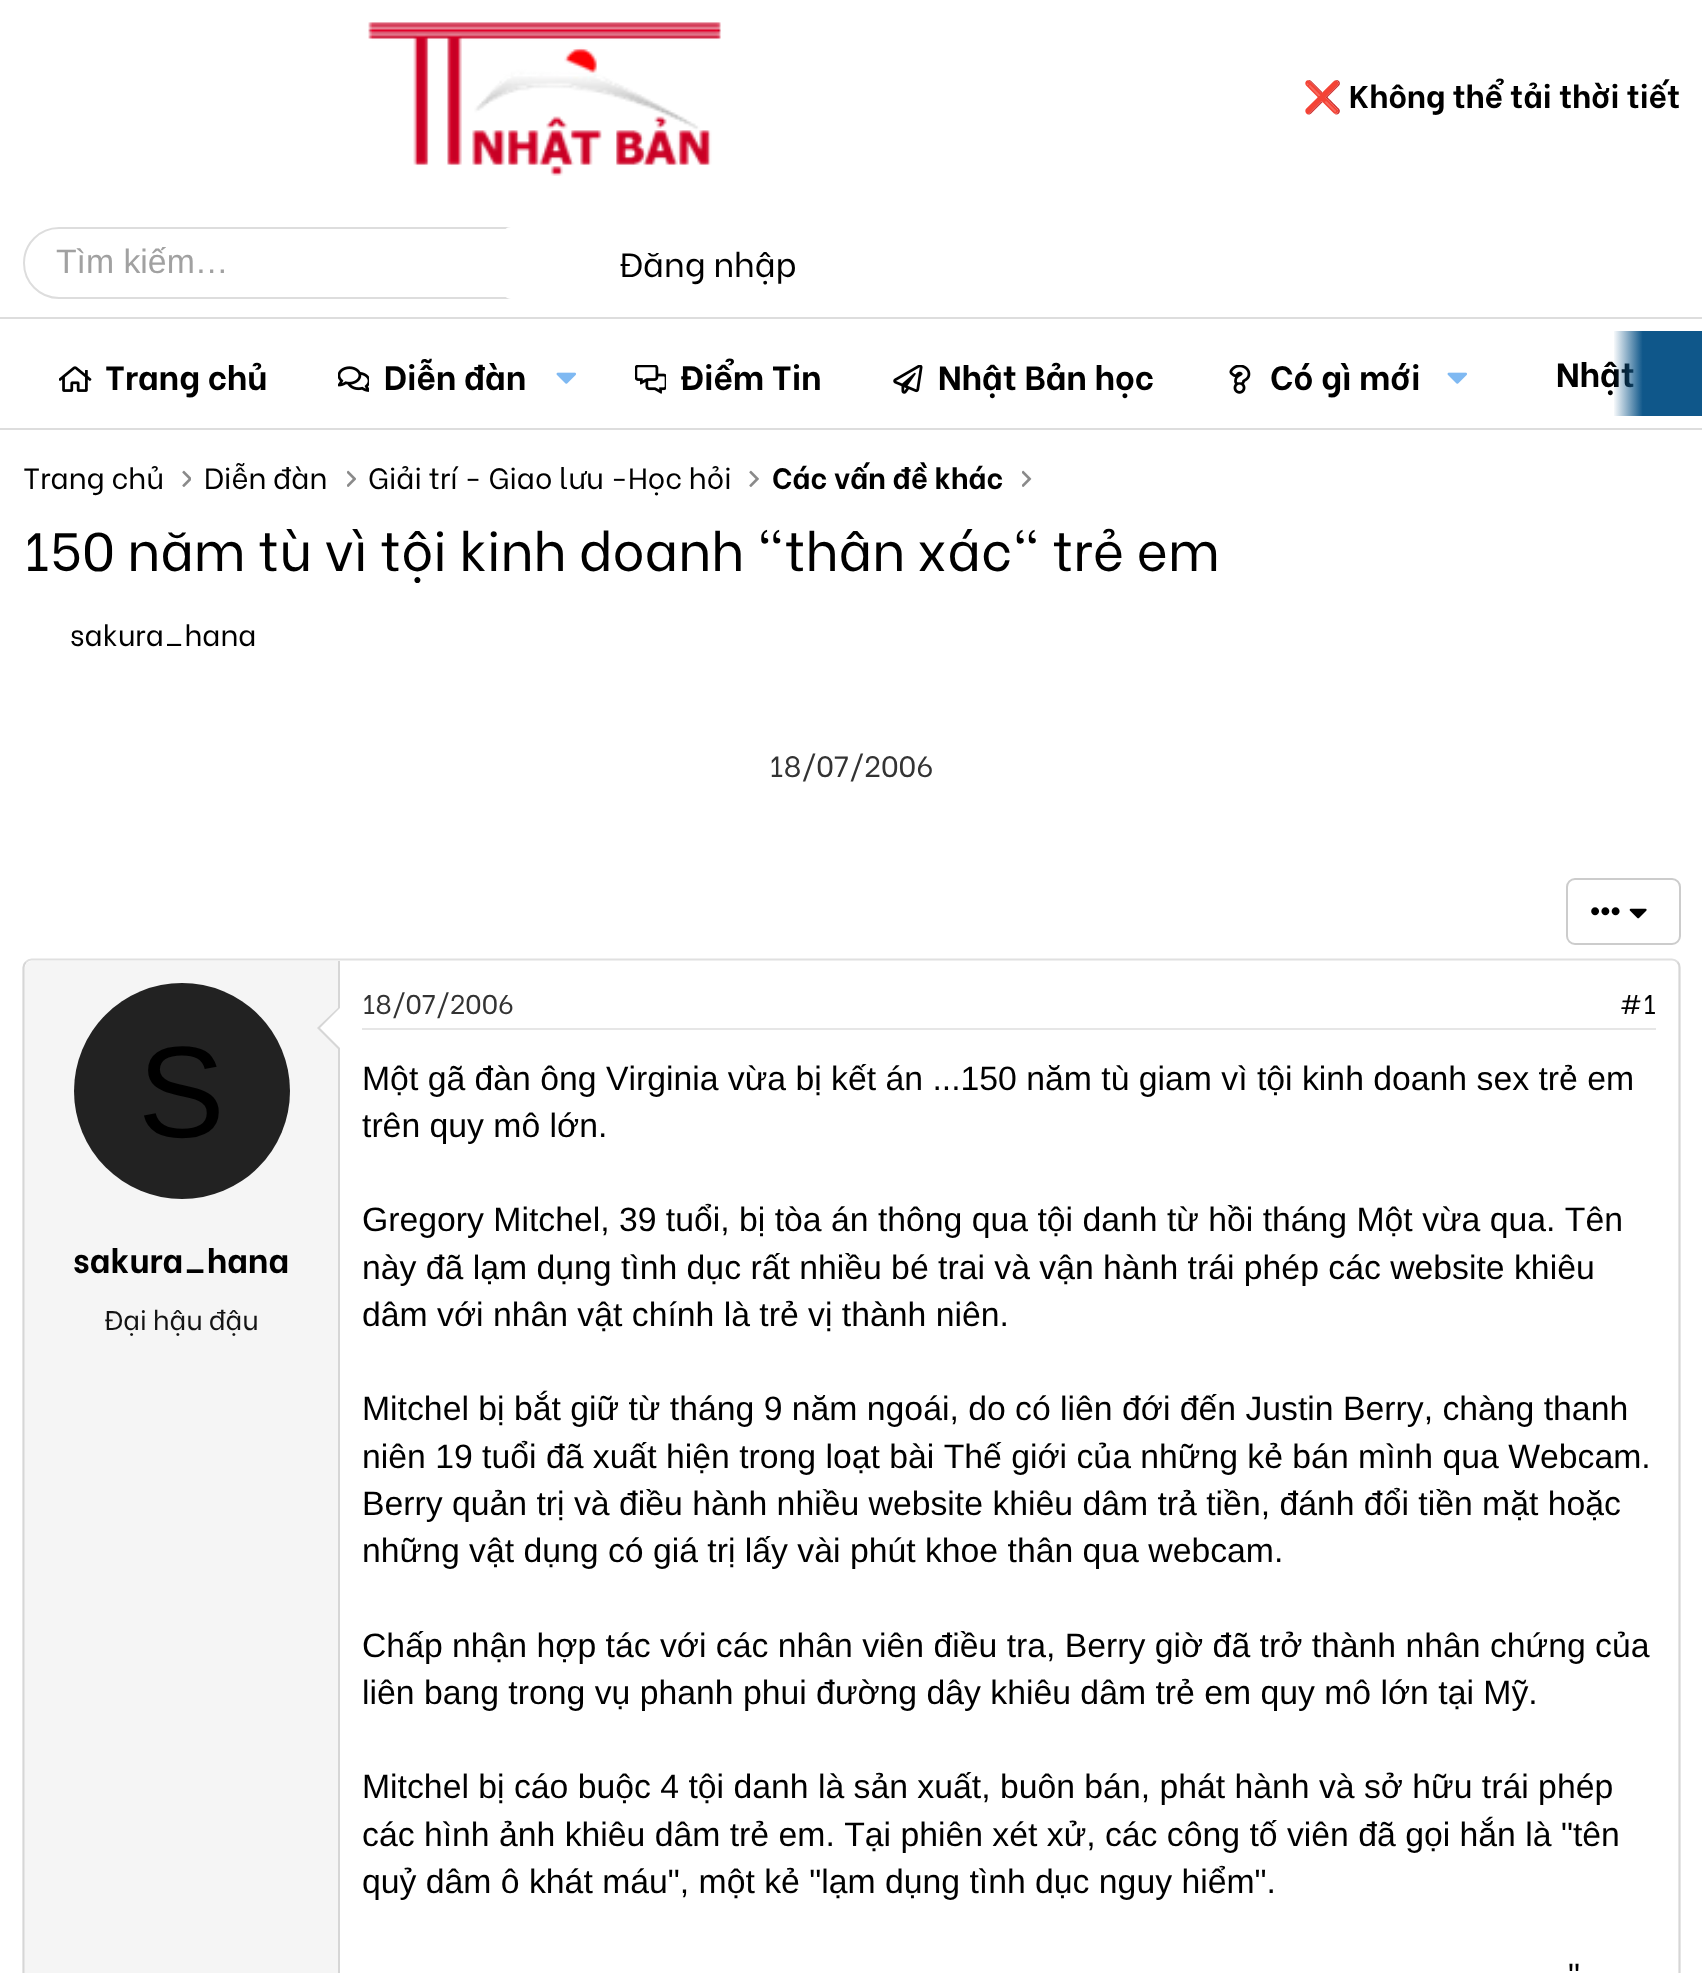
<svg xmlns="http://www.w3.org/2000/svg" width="1702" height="1973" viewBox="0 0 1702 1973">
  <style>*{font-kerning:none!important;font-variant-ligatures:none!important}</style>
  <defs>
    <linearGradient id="g1" gradientUnits="userSpaceOnUse" x1="1613" y1="374" x2="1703" y2="374"><stop offset="0" stop-color="#0f578a" stop-opacity="0"/><stop offset="0.33" stop-color="#0f578a"/></linearGradient>
  </defs>
  <rect width="100%" height="100%" fill="#ffffff"/>
  <image x="368" y="22" width="353" height="154" href="img1.png"/>
  <text x="1303" y="108" font-family="Noto Color Emoji" font-size="31.5" font-weight="bold" fill="#000000">❌</text>
  <text x="1349" y="108" font-family="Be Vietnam" font-size="31.5" font-weight="bold" fill="#000000">Không thể tải thời tiết</text>
  <rect x="24" y="228" width="549" height="70" rx="35" fill="none" stroke="#dddddd" stroke-width="2"/>
  <text x="56" y="273" font-family="Liberation Sans" font-size="33.75" fill="#a1a1a1">Tìm kiếm…</text>
  <rect x="502" y="227" width="72" height="72" rx="9" fill="#ffffff"/>
  <text x="619" y="277" font-family="Be Vietnam" font-size="33.75" fill="#000000">Đăng nhập</text>
  <rect x="0" y="317" width="1702" height="2" fill="#dddddd"/>
  <rect x="0" y="428" width="1702" height="2" fill="#dddddd"/>
  <image x="59" y="366" width="33" height="26" href="img2.png"/>
  <text x="105" y="390" font-family="Be Vietnam" font-size="33.75" font-weight="bold" fill="#000000">Trang chủ</text>
  <image x="338" y="366" width="31" height="26" href="img3.png"/>
  <text x="384" y="390" font-family="Be Vietnam" font-size="33.75" font-weight="bold" fill="#000000">Diễn đàn</text>
  <image x="556" y="372" width="20" height="12" href="img4.png"/>
  <image x="635" y="365" width="31" height="29" href="img5.png"/>
  <text x="680" y="390" font-family="Be Vietnam" font-size="33.75" font-weight="bold" fill="#000000">Điểm Tin</text>
  <image x="893" y="365" width="30" height="29" href="img6.png"/>
  <text x="938" y="390" font-family="Be Vietnam" font-size="33.75" font-weight="bold" fill="#000000">Nhật Bản học</text>
  <image x="1229" y="365" width="22" height="29" href="img7.png"/>
  <text x="1270" y="390" font-family="Be Vietnam" font-size="33.75" font-weight="bold" fill="#000000">Có gì mới</text>
  <image x="1447" y="372" width="20" height="12" href="img4.png"/>
  <text x="1556" y="387" font-family="Be Vietnam" font-size="33.75" font-weight="bold" fill="#000000">Nhật</text>
  <rect x="1614" y="331" width="88" height="85" fill="url(#g1)"/>
  <text x="23" y="489" font-family="Be Vietnam" font-size="29.25" fill="#000000">Trang chủ</text>
  <image x="182" y="470" width="9" height="17" href="img8.png"/>
  <text x="204" y="489" font-family="Be Vietnam" font-size="29.25" fill="#000000">Diễn đàn</text>
  <image x="347" y="470" width="9" height="17" href="img9.png"/>
  <text x="368" y="489" font-family="Be Vietnam" font-size="29.25" fill="#000000">Giải trí - Giao lưu -Học hỏi</text>
  <image x="749" y="470" width="10" height="17" href="img10.png"/>
  <text x="772" y="489" font-family="Be Vietnam" font-size="29.25" font-weight="bold" fill="#000000">Các vấn đề khác</text>
  <image x="1022" y="470" width="10" height="17" href="img11.png"/>
  <text x="23" y="571" font-family="Be Vietnam" font-size="54" fill="#000000">150 năm tù vì tội kinh doanh "thân xác" trẻ em</text>
  <text x="70" y="646" font-family="Be Vietnam" font-size="29.25" fill="#000000">sakura_hana</text>
  <text x="769" y="777" font-family="Be Vietnam" font-size="29.25" fill="#333333">18/07/2006</text>
  <rect x="1567" y="879" width="113" height="65" rx="8" fill="none" stroke="#cccccc" stroke-width="2"/>
  <text x="1590" y="921" font-family="Liberation Sans" font-size="29.25" fill="#000000">•••</text>
  <image x="1629" y="908" width="18" height="11" href="img12.png"/>
  <path d="M26 962C27.5 960.5 29.5 959.5 31.5 959.5H1672C1674 959.5 1676 960.5 1677.5 962" fill="none" stroke="#e0e0e0" stroke-width="2.2"/>
  <path d="M1677.5 962C1679 963.5 1679.5 965.5 1679.5 967.5V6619.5C1679.5 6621.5 1679 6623.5 1677.5 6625" fill="none" stroke="#d6d6d6" stroke-width="2.2"/>
  <path d="M26 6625C24.5 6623.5 23.5 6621.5 23.5 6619.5V967.5C23.5 965.5 24.5 963.5 26 962" fill="none" stroke="#d6d6d6" stroke-width="2.2"/>
  <path d="M32 961H340V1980H32C28 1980 25 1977 25 1973V968C25 964 28 961 32 961Z" fill="#f5f5f5"/>
  <rect x="338" y="961" width="2" height="1012" fill="#d6d6d6"/>
  <path d="M340 1006V1051L317 1028Z" fill="#d6d6d6"/>
  <path d="M340 1008V1048L320 1028Z" fill="#ffffff"/>
  <circle cx="182" cy="1091" r="108" fill="#222222"/>
  <text x="138" y="1137" font-family="Liberation Sans" font-size="130" fill="#000000">S</text>
  <text x="73" y="1273" font-family="Be Vietnam" font-size="33.75" font-weight="bold" fill="#000000">sakura_hana</text>
  <text x="104" y="1330" font-family="Be Vietnam" font-size="27" fill="#141414">Đại hậu đậu</text>
  <rect x="362" y="1028" width="1294" height="2" fill="#e6e6e6"/>
  <text x="362" y="1014" font-family="Be Vietnam" font-size="27" fill="#333333">18/07/2006</text>
  <text x="1619" y="1014" font-family="Be Vietnam" font-size="27" fill="#000000">#1</text>
  <text x="362" y="1090" font-family="Liberation Sans" font-size="33.75" fill="#000000">Một gã đàn ông Virginia vừa bị kết án ...150 năm tù giam vì tội kinh doanh sex trẻ em</text>
  <text x="362" y="1137" font-family="Liberation Sans" font-size="33.75" fill="#000000">trên quy mô lớn.</text>
  <text x="362" y="1231" font-family="Liberation Sans" font-size="33.75" fill="#000000">Gregory Mitchel, 39 tuổi, bị tòa án thông qua tội danh từ hồi tháng Một vừa qua. Tên</text>
  <text x="362" y="1279" font-family="Liberation Sans" font-size="33.75" fill="#000000">này đã lạm dụng tình dục rất nhiều bé trai và vận hành trái phép các website khiêu</text>
  <text x="362" y="1326" font-family="Liberation Sans" font-size="33.75" fill="#000000">dâm với nhân vật chính là trẻ vị thành niên.</text>
  <text x="362" y="1420" font-family="Liberation Sans" font-size="33.75" fill="#000000">Mitchel bị bắt giữ từ tháng 9 năm ngoái, do có liên đới đến Justin Berry, chàng thanh</text>
  <text x="362" y="1468" font-family="Liberation Sans" font-size="33.75" fill="#000000">niên 19 tuổi đã xuất hiện trong loạt bài Thế giới của những kẻ bán mình qua Webcam.</text>
  <text x="362" y="1515" font-family="Liberation Sans" font-size="33.75" fill="#000000">Berry quản trị và điều hành nhiều website khiêu dâm trả tiền, đánh đổi tiền mặt hoặc</text>
  <text x="362" y="1562" font-family="Liberation Sans" font-size="33.75" fill="#000000">những vật dụng có giá trị lấy vài phút khoe thân qua webcam.</text>
  <text x="362" y="1657" font-family="Liberation Sans" font-size="33.75" fill="#000000">Chấp nhận hợp tác với các nhân viên điều tra, Berry giờ đã trở thành nhân chứng của</text>
  <text x="362" y="1704" font-family="Liberation Sans" font-size="33.75" fill="#000000">liên bang trong vụ phanh phui đường dây khiêu dâm trẻ em quy mô lớn tại Mỹ.</text>
  <text x="362" y="1798" font-family="Liberation Sans" font-size="33.75" fill="#000000">Mitchel bị cáo buộc 4 tội danh là sản xuất, buôn bán, phát hành và sở hữu trái phép</text>
  <text x="362" y="1846" font-family="Liberation Sans" font-size="33.75" fill="#000000">các hình ảnh khiêu dâm trẻ em. Tại phiên xét xử, các công tố viên đã gọi hắn là "tên</text>
  <text x="362" y="1893" font-family="Liberation Sans" font-size="33.75" fill="#000000">quỷ dâm ô khát máu", một kẻ "lạm dụng tình dục nguy hiểm".</text>
  <text x="1568" y="1987" font-family="Liberation Sans" font-size="33.75" fill="#000000">"</text>
</svg>
